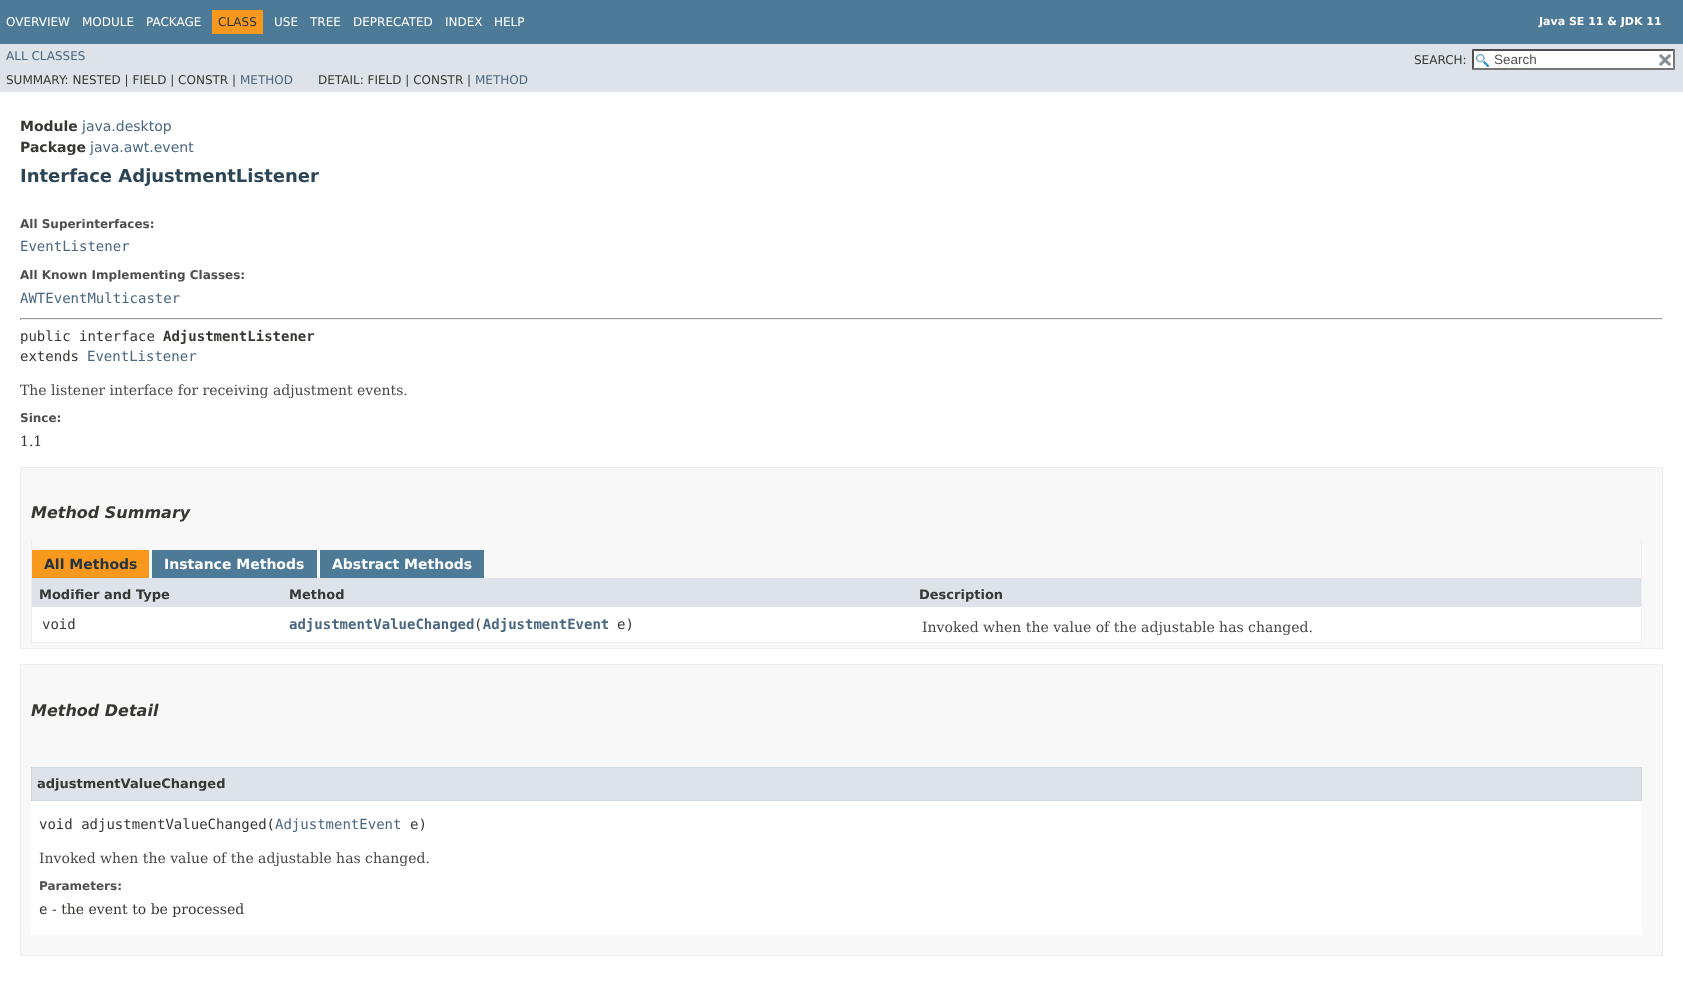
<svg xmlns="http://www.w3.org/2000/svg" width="1683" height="989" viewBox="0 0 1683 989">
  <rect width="100%" height="100%" fill="#ffffff"/>
  <rect x="0" y="0" width="1683" height="44" fill="#4d7a97"/>
  <text x="6" y="26" font-family="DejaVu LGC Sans" font-size="12" fill="#ffffff">OVERVIEW</text>
  <text x="82" y="26" font-family="DejaVu LGC Sans" font-size="12" fill="#ffffff">MODULE</text>
  <text x="146" y="26" font-family="DejaVu LGC Sans" font-size="12" fill="#ffffff">PACKAGE</text>
  <rect x="212" y="10" width="51" height="24" fill="#f8981d"/>
  <text x="218" y="26" font-family="DejaVu LGC Sans" font-size="12" fill="#253441">CLASS</text>
  <text x="274" y="26" font-family="DejaVu LGC Sans" font-size="12" fill="#ffffff">USE</text>
  <text x="310" y="26" font-family="DejaVu LGC Sans" font-size="12" fill="#ffffff">TREE</text>
  <text x="353" y="26" font-family="DejaVu LGC Sans" font-size="12" fill="#ffffff">DEPRECATED</text>
  <text x="445" y="26" font-family="DejaVu LGC Sans" font-size="12" fill="#ffffff">INDEX</text>
  <text x="494" y="26" font-family="DejaVu LGC Sans" font-size="12" fill="#ffffff">HELP</text>
  <text x="1539" y="25" font-family="DejaVu LGC Sans" font-size="11" font-weight="bold" fill="#ffffff">Java SE 11 &amp; JDK 11</text>
  <rect x="0" y="44" width="1683" height="48" fill="#dee3e9"/>
  <text x="6" y="60" font-family="DejaVu LGC Sans" font-size="12" fill="#4a6782">ALL CLASSES</text>
  <text x="1414" y="64" font-family="DejaVu LGC Sans" font-size="12" fill="#353833">SEARCH:</text>
  <rect x="1472" y="49" width="203" height="21" fill="#ffffff"/>
  <image x="1476" y="54" width="13" height="13" href="img1.png"/>
  <path d="M1472 49H1675L1673 51H1474Z" fill="#4f4f4f"/>
  <path d="M1675 49V70L1673 68V51Z" fill="#767676"/>
  <path d="M1675 70H1472L1474 68H1673Z" fill="#767676"/>
  <path d="M1472 70V49L1474 51V68Z" fill="#4f4f4f"/>
  <text x="1494" y="64" font-family="Liberation Sans" font-size="13.5" fill="#545454">Search</text>
  <image x="1658" y="54" width="14" height="12" href="img2.png"/>
  <text x="6" y="84" font-family="DejaVu LGC Sans" font-size="12" fill="#353833">SUMMARY: NESTED | FIELD | CONSTR |</text>
  <text x="240" y="84" font-family="DejaVu LGC Sans" font-size="12" fill="#4a6782">METHOD</text>
  <text x="318" y="84" font-family="DejaVu LGC Sans" font-size="12" fill="#353833">DETAIL: FIELD | CONSTR |</text>
  <text x="475" y="84" font-family="DejaVu LGC Sans" font-size="12" fill="#4a6782">METHOD</text>
  <text x="20" y="131" font-family="DejaVu LGC Sans" font-size="14" font-weight="bold" fill="#353833">Module</text>
  <text x="82" y="131" font-family="DejaVu LGC Sans" font-size="14" fill="#4a6782">java.desktop</text>
  <text x="20" y="152" font-family="DejaVu LGC Sans" font-size="14" font-weight="bold" fill="#353833">Package</text>
  <text x="90" y="152" font-family="DejaVu LGC Sans" font-size="14" fill="#4a6782">java.awt.event</text>
  <text x="20" y="182" font-family="DejaVu LGC Sans" font-size="18" font-weight="bold" fill="#2c4557">Interface AdjustmentListener</text>
  <text x="20" y="228" font-family="DejaVu LGC Sans" font-size="12" font-weight="bold" fill="#4e4e4e">All Superinterfaces:</text>
  <text x="20" y="251" font-family="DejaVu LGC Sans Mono" font-size="14" fill="#4a6782">EventListener</text>
  <text x="20" y="279" font-family="DejaVu LGC Sans" font-size="12" font-weight="bold" fill="#4e4e4e">All Known Implementing Classes:</text>
  <text x="20" y="303" font-family="DejaVu LGC Sans Mono" font-size="14" fill="#4a6782">AWTEventMulticaster</text>
  <rect x="20" y="318" width="1643" height="1" fill="#9f9f9f"/>
  <rect x="1662" y="318" width="1" height="2" fill="#eeeeee"/>
  <rect x="20" y="319" width="1643" height="1" fill="#eeeeee"/>
  <rect x="20" y="318" width="1" height="2" fill="#9f9f9f"/>
  <text x="20" y="341" font-family="DejaVu LGC Sans Mono" font-size="14" fill="#353833">public interface</text>
  <text x="163" y="341" font-family="DejaVu LGC Sans Mono" font-size="14" font-weight="bold" fill="#353833">AdjustmentListener</text>
  <text x="20" y="361" font-family="DejaVu LGC Sans Mono" font-size="14" fill="#353833">extends</text>
  <text x="87" y="361" font-family="DejaVu LGC Sans Mono" font-size="14" fill="#4a6782">EventListener</text>
  <text x="20" y="395" font-family="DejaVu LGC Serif" font-size="14" fill="#474747">The listener interface for receiving adjustment events.</text>
  <text x="20" y="422" font-family="DejaVu LGC Sans" font-size="12" font-weight="bold" fill="#4e4e4e">Since:</text>
  <text x="20" y="446" font-family="DejaVu LGC Serif" font-size="14" fill="#353833">1.1</text>
  <rect x="20.5" y="467.5" width="1642" height="181" fill="#f8f8f8" stroke="#ededed"/>
  <text x="31" y="518" font-family="DejaVu LGC Sans" font-size="16" font-weight="bold" font-style="italic" fill="#353833">Method Summary</text>
  <rect x="1641" y="540" width="1" height="103" fill="#eeeeee"/>
  <rect x="31" y="642" width="1611" height="1" fill="#eeeeee"/>
  <rect x="31" y="540" width="1" height="103" fill="#eeeeee"/>
  <rect x="32" y="550" width="117" height="28" fill="#f8981d"/>
  <text x="44" y="569" font-family="DejaVu LGC Sans" font-size="14" font-weight="bold" fill="#253441">All Methods</text>
  <rect x="152" y="550" width="165" height="28" fill="#4d7a97"/>
  <text x="164" y="569" font-family="DejaVu LGC Sans" font-size="14" font-weight="bold" fill="#ffffff">Instance Methods</text>
  <rect x="320" y="550" width="164" height="28" fill="#4d7a97"/>
  <text x="332" y="569" font-family="DejaVu LGC Sans" font-size="14" font-weight="bold" fill="#ffffff">Abstract Methods</text>
  <rect x="32" y="578" width="1609" height="29" fill="#dee3e9"/>
  <text x="39" y="599" font-family="DejaVu LGC Sans" font-size="13" font-weight="bold" fill="#353833">Modifier and Type</text>
  <text x="289" y="599" font-family="DejaVu LGC Sans" font-size="13" font-weight="bold" fill="#353833">Method</text>
  <text x="919" y="599" font-family="DejaVu LGC Sans" font-size="13" font-weight="bold" fill="#353833">Description</text>
  <rect x="32" y="607" width="1609" height="35" fill="#ffffff"/>
  <text x="42" y="629" font-family="DejaVu LGC Sans Mono" font-size="14" fill="#353833">void</text>
  <text x="289" y="629" font-family="DejaVu LGC Sans Mono" font-size="14" font-weight="bold" fill="#4a6782">adjustmentValueChanged AdjustmentEvent</text>
  <text x="474" y="629" font-family="DejaVu LGC Sans Mono" font-size="14" fill="#353833">(</text>
  <text x="617" y="629" font-family="DejaVu LGC Sans Mono" font-size="14" fill="#353833">e)</text>
  <text x="922" y="632" font-family="DejaVu LGC Serif" font-size="14" fill="#474747">Invoked when the value of the adjustable has changed.</text>
  <rect x="20.5" y="664.5" width="1642" height="291" fill="#f8f8f8" stroke="#ededed"/>
  <text x="31" y="716" font-family="DejaVu LGC Sans" font-size="16" font-weight="bold" font-style="italic" fill="#353833">Method Detail</text>
  <rect x="31" y="801" width="1611" height="134" fill="#ffffff"/>
  <rect x="31.5" y="767.5" width="1610" height="33" fill="#dee3e9" stroke="#d0d9e0"/>
  <text x="37" y="788" font-family="DejaVu LGC Sans" font-size="13" font-weight="bold" fill="#353833">adjustmentValueChanged</text>
  <text x="39" y="829" font-family="DejaVu LGC Sans Mono" font-size="14" fill="#353833">void adjustmentValueChanged(</text>
  <text x="275" y="829" font-family="DejaVu LGC Sans Mono" font-size="14" fill="#4a6782">AdjustmentEvent</text>
  <text x="410" y="829" font-family="DejaVu LGC Sans Mono" font-size="14" fill="#353833">e)</text>
  <text x="39" y="863" font-family="DejaVu LGC Serif" font-size="14" fill="#474747">Invoked when the value of the adjustable has changed.</text>
  <text x="39" y="890" font-family="DejaVu LGC Sans" font-size="12" font-weight="bold" fill="#4e4e4e">Parameters:</text>
  <text x="39" y="914" font-family="DejaVu LGC Sans Mono" font-size="14" fill="#353833">e</text>
  <text x="52" y="914" font-family="DejaVu LGC Serif" font-size="14" fill="#353833">- the event to be processed</text>
</svg>
